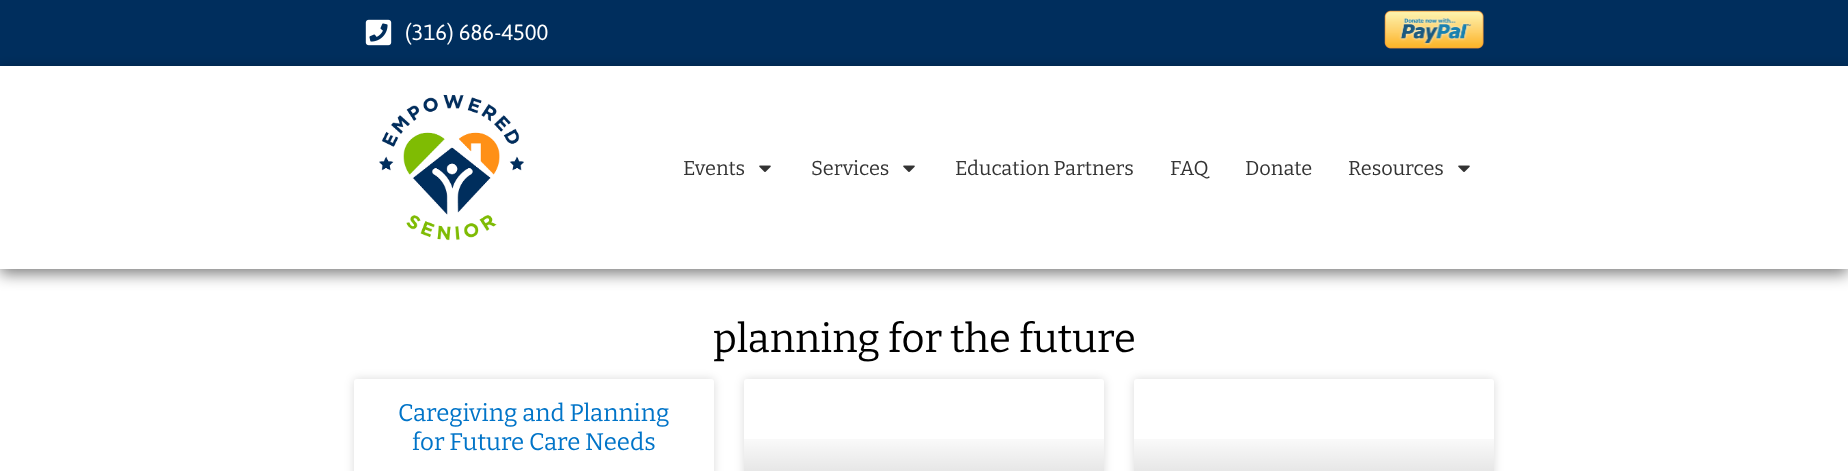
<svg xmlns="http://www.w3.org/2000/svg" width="1848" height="471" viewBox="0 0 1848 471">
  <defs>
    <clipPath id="clip1"><path d="M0 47H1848V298H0ZM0 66H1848V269H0Z" clip-rule="evenodd"/></clipPath>
    <filter id="blur1" x="-50%" y="-200%" width="200%" height="500%"><feGaussianBlur stdDeviation="7.5"/></filter>
    <filter id="blur2" x="-50%" y="-200%" width="200%" height="500%"><feGaussianBlur stdDeviation="5"/></filter>
    <linearGradient id="g1" gradientUnits="userSpaceOnUse" x1="924" y1="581" x2="924" y2="379"><stop offset="0" stop-color="#000000" stop-opacity="0.35"/><stop offset="0.75" stop-color="#000000" stop-opacity="0"/></linearGradient>
    <linearGradient id="g2" gradientUnits="userSpaceOnUse" x1="1314" y1="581" x2="1314" y2="379"><stop offset="0" stop-color="#000000" stop-opacity="0.35"/><stop offset="0.75" stop-color="#000000" stop-opacity="0"/></linearGradient>
  </defs>
  <rect width="100%" height="100%" fill="#ffffff"/>
  <rect x="0" y="0" width="1848" height="66" fill="#002e5d"/>
  <image x="365" y="19" width="27" height="27" href="img1.png"/>
  <text x="405" y="40" font-family="Asap" font-size="22" fill="#ffffff">(316) 686-4500</text>
  <image x="1384" y="10" width="100" height="39" href="img2.png"/>
  <g clip-path="url(#clip1)">
    <rect x="0" y="71" width="1848" height="203" fill="#000000" fill-opacity="0.5" filter="url(#blur1)"/>
  </g>
  <image x="379" y="94" width="145" height="147" href="img3.png"/>
  <text x="683" y="175" font-family="Bitter" font-size="20" fill="#333333">Events</text>
  <image x="759" y="165" width="12" height="7" href="img4.png"/>
  <text x="811" y="175" font-family="Bitter" font-size="20" fill="#333333">Services</text>
  <image x="903" y="165" width="12" height="7" href="img4.png"/>
  <text x="955" y="175" font-family="Bitter" font-size="20" fill="#333333">Education Partners</text>
  <text x="1170" y="175" font-family="Bitter" font-size="20" fill="#333333">FAQ</text>
  <text x="1245" y="175" font-family="Bitter" font-size="20" fill="#333333">Donate</text>
  <text x="1348" y="175" font-family="Bitter" font-size="20" fill="#333333">Resources</text>
  <image x="1458" y="165" width="12" height="7" href="img4.png"/>
  <text x="713" y="352" font-family="Bitter" font-size="40" fill="#000000">planning for the future</text>
  <rect x="354" y="379" width="360" height="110" rx="3" fill="#000000" fill-opacity="0.15" filter="url(#blur2)"/>
  <rect x="354" y="379" width="360" height="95" rx="3" fill="#ffffff"/>
  <text x="398" y="421" font-family="Bitter" font-size="24" fill="#0074c8">Caregiving and Planning</text>
  <text x="412" y="450" font-family="Bitter" font-size="24" fill="#0074c8">for Future Care Needs</text>
  <rect x="744" y="379" width="360" height="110" rx="3" fill="#000000" fill-opacity="0.15" filter="url(#blur2)"/>
  <rect x="744" y="379" width="360" height="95" rx="3" fill="#ffffff"/>
  <rect x="744" y="439" width="360" height="32" fill="url(#g1)"/>
  <rect x="1134" y="379" width="360" height="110" rx="3" fill="#000000" fill-opacity="0.15" filter="url(#blur2)"/>
  <rect x="1134" y="379" width="360" height="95" rx="3" fill="#ffffff"/>
  <rect x="1134" y="439" width="360" height="32" fill="url(#g2)"/>
</svg>
